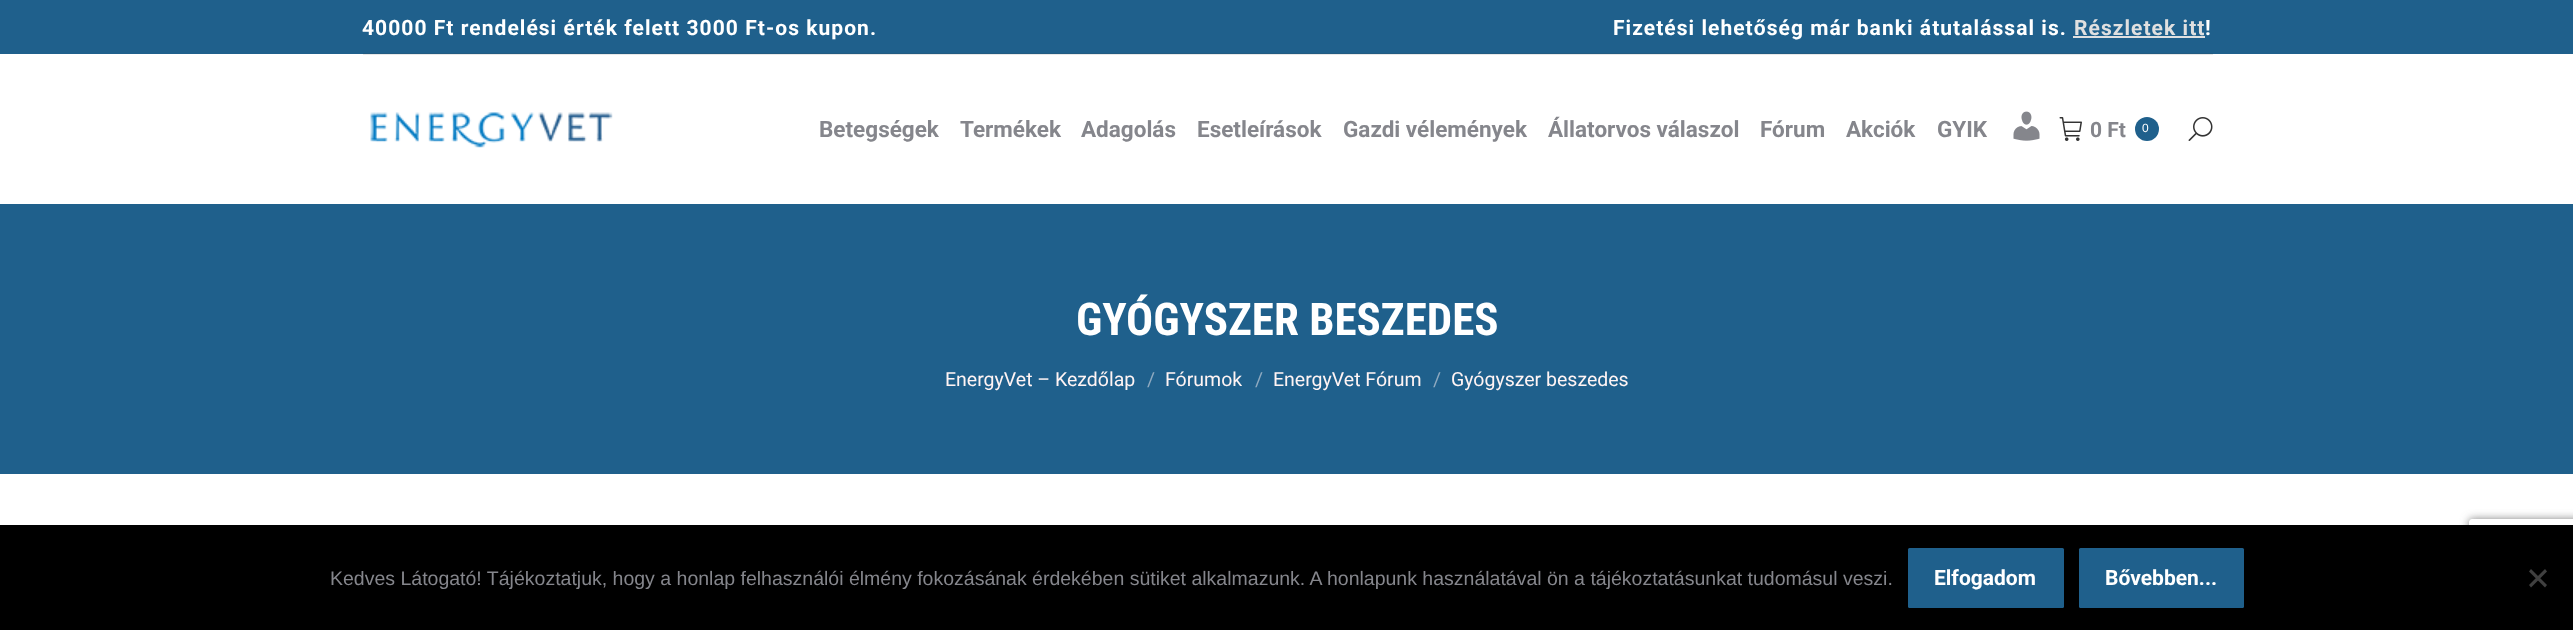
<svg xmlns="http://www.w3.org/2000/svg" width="2573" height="630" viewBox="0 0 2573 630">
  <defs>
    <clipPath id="clip1"><path d="M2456 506H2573V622H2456ZM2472 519H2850C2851.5 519 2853 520.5 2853 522V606C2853 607.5 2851.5 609 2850 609H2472C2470.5 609 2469 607.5 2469 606V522C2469 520.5 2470.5 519 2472 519Z" clip-rule="evenodd"/></clipPath>
    <filter id="blur1" x="-50%" y="-200%" width="200%" height="500%"><feGaussianBlur stdDeviation="4"/></filter>
  </defs>
  <rect width="100%" height="100%" fill="#ffffff"/>
  <rect x="363" y="54" width="1850" height="1" fill="#e7e7e7"/>
  <rect x="0" y="0" width="2573" height="54" fill="#1f608c"/>
  <rect x="363" y="53" width="1850" height="1" fill="#215b81"/>
  <text x="362" y="35" font-family="Roboto" font-size="21" font-weight="bold" letter-spacing="1.05" fill="#ffffff">40000 Ft rendelési érték felett 3000 Ft-os kupon.</text>
  <text x="1613" y="35" font-family="Roboto" font-size="21" font-weight="bold" letter-spacing="1.05" fill="#ffffff">Fizetési lehetőség már banki átutalással is.</text>
  <text x="2074" y="35" font-family="Roboto" font-size="21" font-weight="bold" letter-spacing="1.05" fill="#e0e0e0">Részletek itt</text>
  <rect x="2073" y="36" width="132" height="2" fill="#e0e0e0"/>
  <text x="2205" y="35" font-family="Roboto" font-size="21" font-weight="bold" letter-spacing="1.05" fill="#ffffff">!</text>
  <image x="370" y="112" width="243" height="36" href="img1.png"/>
  <text x="819" y="137" font-family="Roboto" font-size="22.5" font-weight="bold" fill="#85868c">Betegségek</text>
  <text x="960" y="137" font-family="Roboto" font-size="22.5" font-weight="bold" fill="#85868c">Termékek</text>
  <text x="1081" y="137" font-family="Roboto" font-size="22.5" font-weight="bold" fill="#85868c">Adagolás</text>
  <text x="1197" y="137" font-family="Roboto" font-size="22.5" font-weight="bold" fill="#85868c">Esetleírások</text>
  <text x="1343" y="137" font-family="Roboto" font-size="22.5" font-weight="bold" fill="#85868c">Gazdi vélemények</text>
  <text x="1548" y="137" font-family="Roboto" font-size="22.5" font-weight="bold" fill="#85868c">Állatorvos válaszol</text>
  <text x="1760" y="137" font-family="Roboto" font-size="22.5" font-weight="bold" fill="#85868c">Fórum</text>
  <text x="1846" y="137" font-family="Roboto" font-size="22.5" font-weight="bold" fill="#85868c">Akciók</text>
  <text x="1937" y="137" font-family="Roboto" font-size="22.5" font-weight="bold" fill="#85868c">GYIK</text>
  <image x="2013" y="111" width="27" height="30" href="img2.png"/>
  <image x="2059" y="117" width="23" height="24" href="img3.png"/>
  <text x="2090" y="137" font-family="Roboto" font-size="21" font-weight="bold" fill="#85868c">0 Ft</text>
  <circle cx="2147" cy="129" r="12" fill="#1f608c"/>
  <text x="2142" y="132" font-family="Liberation Sans" font-size="12" fill="#ffffff">0</text>
  <image x="2188" y="117" width="25" height="24" href="img4.png"/>
  <rect x="0" y="204" width="2573" height="270" fill="#1f608c"/>
  <text x="1076" y="335" font-family="Roboto Condensed" font-size="45" font-weight="bold" fill="#ffffff">GYÓGYSZER BESZEDES</text>
  <text x="945" y="386" font-family="Roboto" font-size="19.5" fill="#fff4f4">EnergyVet – Kezdőlap</text>
  <text x="1147" y="386" font-family="Roboto" font-size="19.5" fill="#8faac0">/</text>
  <text x="1165" y="386" font-family="Roboto" font-size="19.5" fill="#fff4f4">Fórumok</text>
  <text x="1255" y="386" font-family="Roboto" font-size="19.5" fill="#8faac0">/</text>
  <text x="1273" y="386" font-family="Roboto" font-size="19.5" fill="#fff4f4">EnergyVet Fórum</text>
  <text x="1433" y="386" font-family="Roboto" font-size="19.5" fill="#8faac0">/</text>
  <text x="1451" y="386" font-family="Roboto" font-size="19.5" fill="#fff4f4">Gyógyszer beszedes</text>
  <g clip-path="url(#clip1)">
    <rect x="2469" y="519" width="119" height="90" rx="3" fill="#808080" filter="url(#blur1)"/>
  </g>
  <rect x="0" y="525" width="2573" height="105" fill="#000000"/>
  <text x="330" y="585" font-family="Liberation Sans" font-size="19.5" fill="#85868c">Kedves Látogató! Tájékoztatjuk, hogy a honlap felhasználói élmény fokozásának érdekében sütiket alkalmazunk. A honlapunk használatával ön a tájékoztatásunkat tudomásul veszi.</text>
  <rect x="1908" y="548" width="156" height="60" rx="1.5" fill="#1f608c"/>
  <text x="1934" y="585" font-family="Roboto" font-size="21" font-weight="bold" fill="#ffffff">Elfogadom</text>
  <rect x="2079" y="548" width="165" height="60" rx="1.5" fill="#1f608c"/>
  <text x="2105" y="585" font-family="Roboto" font-size="21" font-weight="bold" fill="#ffffff">Bővebben...</text>
  <path d="M2545 569L2547 571.5L2531 587.5L2529 585Z" fill="#404040"/>
  <path d="M2529 571.5L2531 569L2547 585L2545 587.5Z" fill="#404040"/>
</svg>
